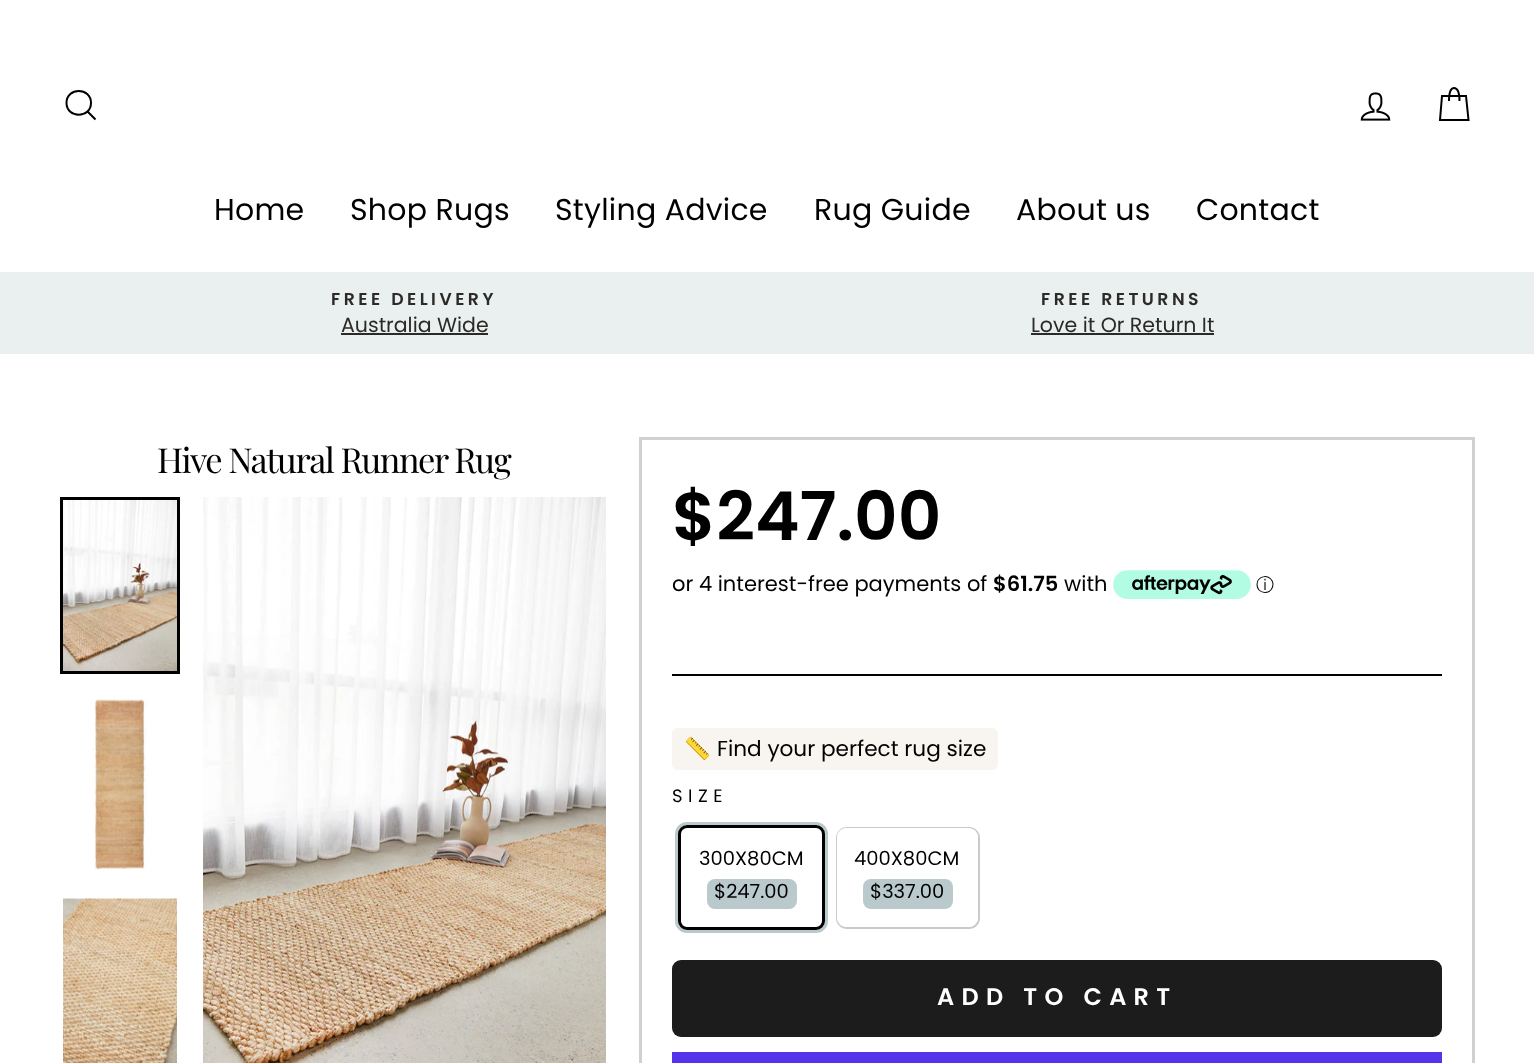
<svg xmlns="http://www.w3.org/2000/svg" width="1534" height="1063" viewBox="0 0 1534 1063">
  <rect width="100%" height="100%" fill="#ffffff"/>
  <path d="M91 103C91 118.5 66.5 118.5 66.5 103C66.5 87 91 87 91 103ZM95.5 119.5L87.5 111.5" fill="none" stroke="#000000" stroke-width="2"/>
  <image x="1360" y="92" width="31" height="29" href="img1.png"/>
  <path d="M1449 101C1449 90.5 1451 88 1454 88C1457 88 1459.5 90.5 1459.5 101M1442 96H1466L1468.5 120H1440Z" fill="none" stroke="#000000" stroke-width="2"/>
  <text x="214" y="220" font-family="Poppins" font-size="30" letter-spacing="0.25" fill="#000000">Home</text>
  <text x="350" y="220" font-family="Poppins" font-size="30" letter-spacing="0.25" fill="#000000">Shop Rugs</text>
  <text x="555" y="220" font-family="Poppins" font-size="30" letter-spacing="0.25" fill="#000000">Styling Advice</text>
  <text x="814" y="220" font-family="Poppins" font-size="30" letter-spacing="0.25" fill="#000000">Rug Guide</text>
  <text x="1016" y="220" font-family="Poppins" font-size="30" letter-spacing="0.25" fill="#000000">About us</text>
  <text x="1196" y="220" font-family="Poppins" font-size="30" letter-spacing="0.25" fill="#000000">Contact</text>
  <rect x="0" y="272" width="1534" height="82" fill="#eaeff0"/>
  <text x="331" y="305" font-family="Poppins" font-size="17.25" font-weight="600" letter-spacing="3.5" fill="#2b2a27">FREE DELIVERY</text>
  <text x="341" y="332" font-family="Poppins" font-size="20.5" fill="#2b2a27">Australia Wide</text>
  <rect x="341" y="333" width="147" height="2" fill="#2b2a27"/>
  <text x="1041" y="305" font-family="Poppins" font-size="17.25" font-weight="600" letter-spacing="3.5" fill="#2b2a27">FREE RETURNS</text>
  <text x="1031" y="332" font-family="Poppins" font-size="20.5" fill="#2b2a27">Love it Or Return It</text>
  <rect x="1031" y="333" width="183" height="2" fill="#2b2a27"/>
  <text x="157" y="473" font-family="Playfair Display" font-size="34.5" letter-spacing="-1.5" fill="#000000">Hive Natural Runner Rug</text>
  <rect x="61.5" y="498.5" width="117" height="174" fill="none" stroke="#000000" stroke-width="3"/>
  <image x="63" y="500" width="114" height="171" href="img2.png"/>
  <image x="93" y="699" width="55" height="171" href="img3.png"/>
  <image x="63" y="898" width="114" height="165" href="img4.png"/>
  <image x="203" y="497" width="403" height="566" href="img5.png"/>
  <rect x="640.5" y="438.5" width="833" height="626" fill="none" stroke="#d0d0d0" stroke-width="3"/>
  <text x="672" y="540" font-family="Poppins" font-size="67.5" font-weight="600" fill="#000000">$247.00</text>
  <text x="672" y="591" font-family="Poppins" font-size="21" fill="#000000">or 4 interest-free payments of</text>
  <text x="993" y="591" font-family="Poppins" font-size="21" font-weight="600" fill="#000000">$61.75</text>
  <text x="1064" y="591" font-family="Poppins" font-size="21" fill="#000000">with</text>
  <image x="1113" y="570" width="138" height="29" href="img6.png"/>
  <text x="1256" y="591" font-family="WenQuanYi Zen Hei" font-size="18" font-weight="500" fill="#000000">ⓘ</text>
  <rect x="672" y="674" width="770" height="2" fill="#000000"/>
  <rect x="672" y="728" width="326" height="42" rx="6" fill="#f8f4ef"/>
  <text x="684" y="756" font-family="Noto Color Emoji" font-size="21.6" fill="#000000">📏</text>
  <text x="717" y="756" font-family="Poppins" font-size="21.6" fill="#000000">Find your perfect rug size</text>
  <text x="672" y="802" font-family="Poppins" font-size="18" letter-spacing="5.5" fill="#000000">SIZE</text>
  <rect x="676.5" y="823.5" width="150" height="108" rx="10.5" fill="none" stroke="#bac9cc" stroke-width="3"/>
  <rect x="679.5" y="826.5" width="144" height="102" rx="7.5" fill="#ffffff" stroke="#000000" stroke-width="3"/>
  <text x="699" y="865" font-family="Poppins" font-size="19.5" fill="#000000">300X80CM</text>
  <rect x="707" y="879" width="90" height="30" rx="8" fill="#bac9cc"/>
  <text x="714" y="898" font-family="Poppins" font-size="19.5" fill="#000000">$247.00</text>
  <rect x="837" y="828" width="142" height="100" rx="10" fill="none" stroke="#cacaca" stroke-width="2"/>
  <rect x="837" y="828" width="141" height="99" rx="9" fill="#ffffff"/>
  <text x="854" y="865" font-family="Poppins" font-size="19.5" fill="#000000">400X80CM</text>
  <rect x="863" y="879" width="90" height="30" rx="8" fill="#bac9cc"/>
  <text x="870" y="898" font-family="Poppins" font-size="19.5" fill="#000000">$337.00</text>
  <rect x="672" y="960" width="770" height="77" rx="9" fill="#1c1c1c"/>
  <text x="937" y="1005" font-family="Poppins" font-size="24" font-weight="600" letter-spacing="7.25" fill="#ffffff">ADD TO CART</text>
  <rect x="672" y="1052" width="770" height="11" fill="#5433eb"/>
</svg>
